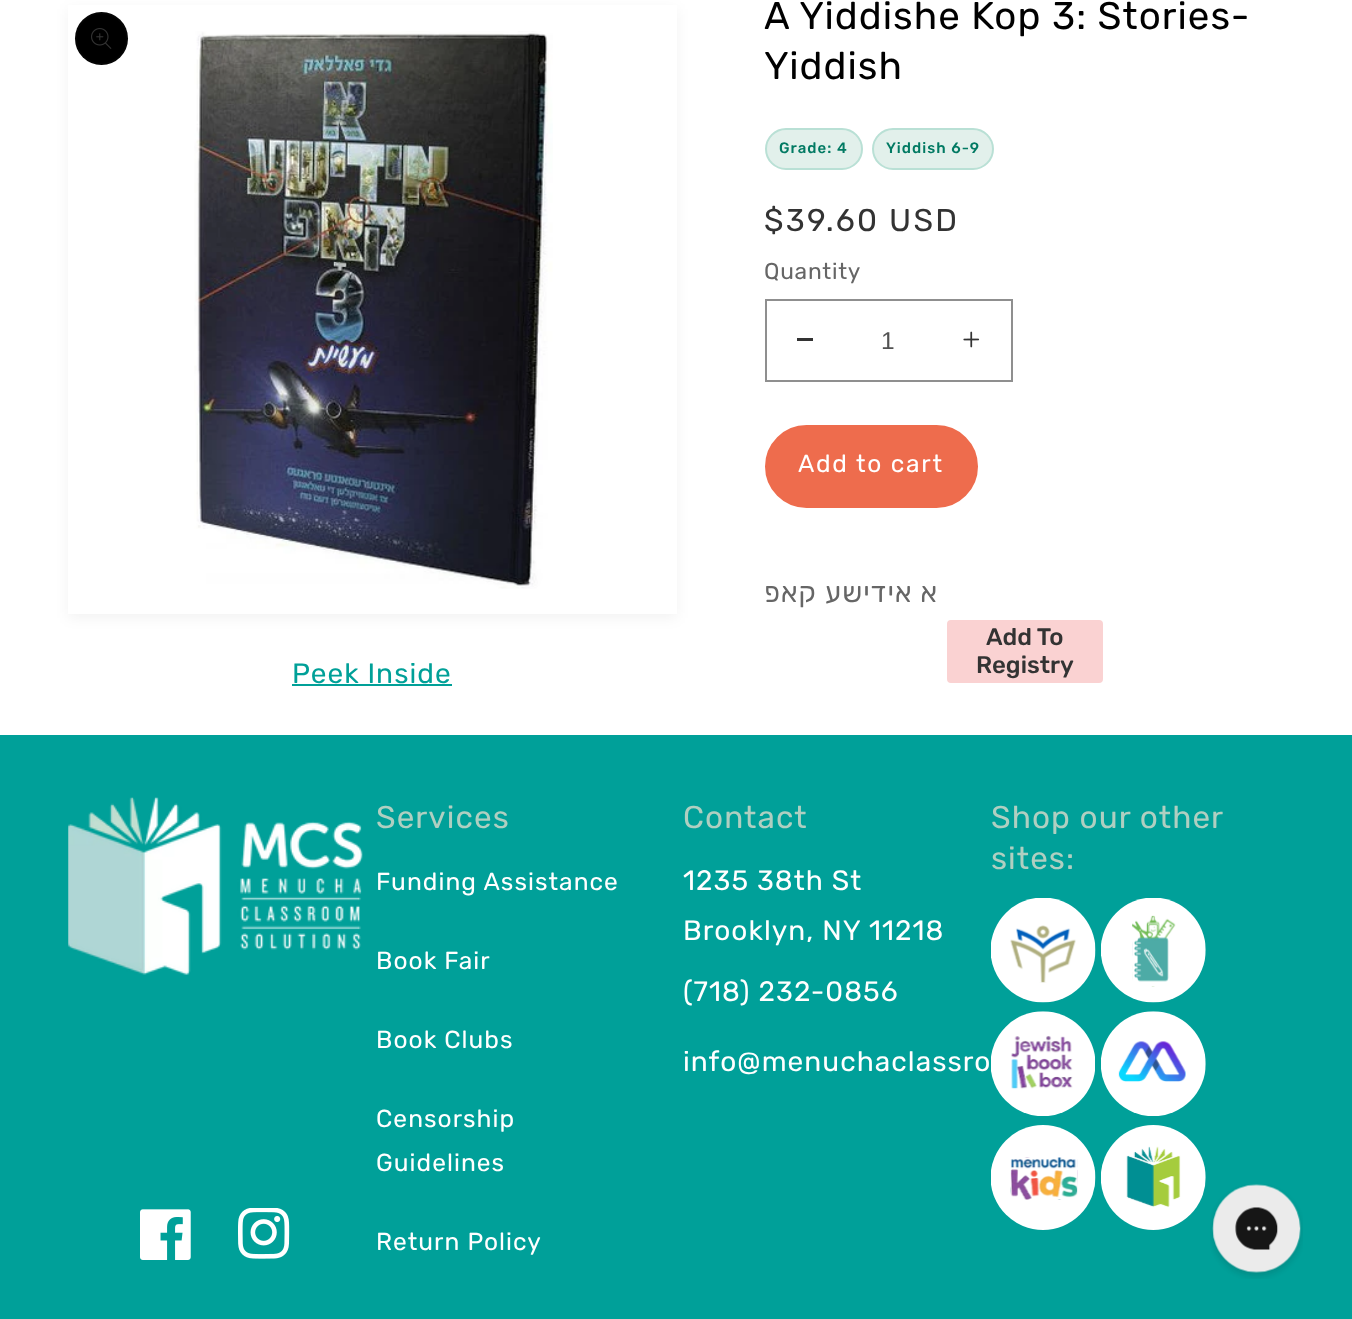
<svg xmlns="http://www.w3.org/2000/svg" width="1352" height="1319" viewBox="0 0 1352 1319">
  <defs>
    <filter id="blur1" x="-50%" y="-200%" width="200%" height="500%"><feGaussianBlur stdDeviation="7"/></filter>
  </defs>
  <rect width="100%" height="100%" fill="#ffffff"/>
  <rect x="68" y="9" width="609" height="609" fill="#000000" fill-opacity="0.05" filter="url(#blur1)"/>
  <rect x="68" y="5" width="609" height="609" fill="#ffffff"/>
  <image x="194" y="31" width="359" height="558" href="img1.png"/>
  <circle cx="101.5" cy="38.5" r="26.5" fill="#000000"/>
  <circle cx="101.5" cy="38.5" r="25.5" fill="none" stroke="#333333" stroke-opacity="0.1" stroke-width="2"/>
  <image x="91" y="28" width="21" height="21" href="img2.png"/>
  <text x="292" y="683" font-family="Rubik" font-size="28" letter-spacing="1.05" fill="#00a098">Peek Inside</text>
  <rect x="292" y="684" width="160" height="2" fill="#00a098"/>
  <text x="764" y="29" font-family="Rubik" font-size="38.5" letter-spacing="1.05" fill="#000000">A Yiddishe Kop 3: Stories-</text>
  <text x="764" y="79" font-family="Rubik" font-size="38.5" letter-spacing="1.05" fill="#000000">Yiddish</text>
  <rect x="766" y="129" width="96" height="40" rx="20" fill="#e2f0eb" stroke="#b9e0d5" stroke-width="2"/>
  <text x="779" y="153" font-family="Rubik" font-size="15" font-weight="500" letter-spacing="1.05" fill="#027a63">Grade: 4</text>
  <rect x="873" y="129" width="120" height="40" rx="20" fill="#e2f0eb" stroke="#b9e0d5" stroke-width="2"/>
  <text x="886" y="153" font-family="Rubik" font-size="15" font-weight="500" letter-spacing="1.05" fill="#027a63">Yiddish 6-9</text>
  <text x="764" y="231" font-family="Rubik" font-size="31.5" letter-spacing="2.25" fill="#333333">$39.60 USD</text>
  <text x="764" y="279" font-family="Rubik" font-size="22.75" letter-spacing="0.75" fill="#666666">Quantity</text>
  <rect x="797" y="338" width="16" height="3" fill="#333333"/>
  <image x="963" y="331" width="17" height="17" href="img3.png"/>
  <rect x="766" y="300" width="246" height="81" fill="none" stroke="#8f8f8f" stroke-width="2"/>
  <text x="881" y="349" font-family="Liberation Sans" font-size="24.5" fill="#525252">1</text>
  <rect x="766" y="426" width="211" height="81" rx="40.5" fill="#ee6c4d" stroke="#ee6c4d" stroke-width="2"/>
  <text x="798" y="472" font-family="Rubik" font-size="24.5" letter-spacing="1.75" fill="#ffffff">Add to cart</text>
  <text x="938" y="602" font-family="Rubik" font-size="28" letter-spacing="1.05" direction="rtl" fill="#666666">א אידישע קאפ</text>
  <rect x="949" y="622" width="152" height="59" rx="2" fill="#fad2d2" stroke="#fad2d2" stroke-width="4"/>
  <text x="986" y="645" font-family="Rubik" font-size="24" font-weight="500" fill="#333333">Add To</text>
  <text x="976" y="673" font-family="Rubik" font-size="24" font-weight="500" fill="#333333">Registry</text>
  <rect x="0" y="735" width="1352" height="584" fill="#00a099"/>
  <image x="68" y="797" width="295" height="178" href="img4.png"/>
  <image x="140" y="1209" width="51" height="51" href="img5.png"/>
  <image x="238" y="1208" width="52" height="51" href="img6.png"/>
  <text x="376" y="828" font-family="Rubik" font-size="31.5" letter-spacing="1.05" fill="#afcfc1">Services</text>
  <text x="376" y="890" font-family="Rubik" font-size="24.5" letter-spacing="1.05" fill="#ffffff">Funding Assistance</text>
  <text x="376" y="969" font-family="Rubik" font-size="24.5" letter-spacing="1.05" fill="#ffffff">Book Fair</text>
  <text x="376" y="1048" font-family="Rubik" font-size="24.5" letter-spacing="1.05" fill="#ffffff">Book Clubs</text>
  <text x="376" y="1127" font-family="Rubik" font-size="24.5" letter-spacing="1.05" fill="#ffffff">Censorship</text>
  <text x="376" y="1171" font-family="Rubik" font-size="24.5" letter-spacing="1.05" fill="#ffffff">Guidelines</text>
  <text x="376" y="1250" font-family="Rubik" font-size="24.5" letter-spacing="1.05" fill="#ffffff">Return Policy</text>
  <text x="683" y="828" font-family="Rubik" font-size="31.5" letter-spacing="1.05" fill="#afcfc1">Contact</text>
  <text x="683" y="890" font-family="Rubik" font-size="28" letter-spacing="1.05" fill="#ffffff">1235 38th St</text>
  <text x="683" y="940" font-family="Rubik" font-size="28" letter-spacing="1.05" fill="#ffffff">Brooklyn, NY 11218</text>
  <text x="683" y="1001" font-family="Rubik" font-size="28" letter-spacing="1.05" fill="#ffffff">(718) 232-0856</text>
  <text x="683" y="1071" font-family="Rubik" font-size="28" letter-spacing="1.05" fill="#ffffff">info@menuchaclassro</text>
  <text x="991" y="828" font-family="Rubik" font-size="31.5" letter-spacing="1.05" fill="#afcfc1">Shop our other</text>
  <text x="991" y="869" font-family="Rubik" font-size="31.5" letter-spacing="1.05" fill="#afcfc1">sites:</text>
  <image x="991" y="898" width="105" height="105" href="img7.png"/>
  <image x="1101" y="898" width="105" height="105" href="img8.png"/>
  <image x="991" y="1011" width="104" height="105" href="img9.png"/>
  <image x="1101" y="1011" width="105" height="105" href="img10.png"/>
  <image x="991" y="1125" width="105" height="105" href="img11.png"/>
  <image x="1101" y="1125" width="105" height="105" href="img12.png"/>
  <image x="1210" y="1184" width="93" height="95" href="img13.png"/>
</svg>
